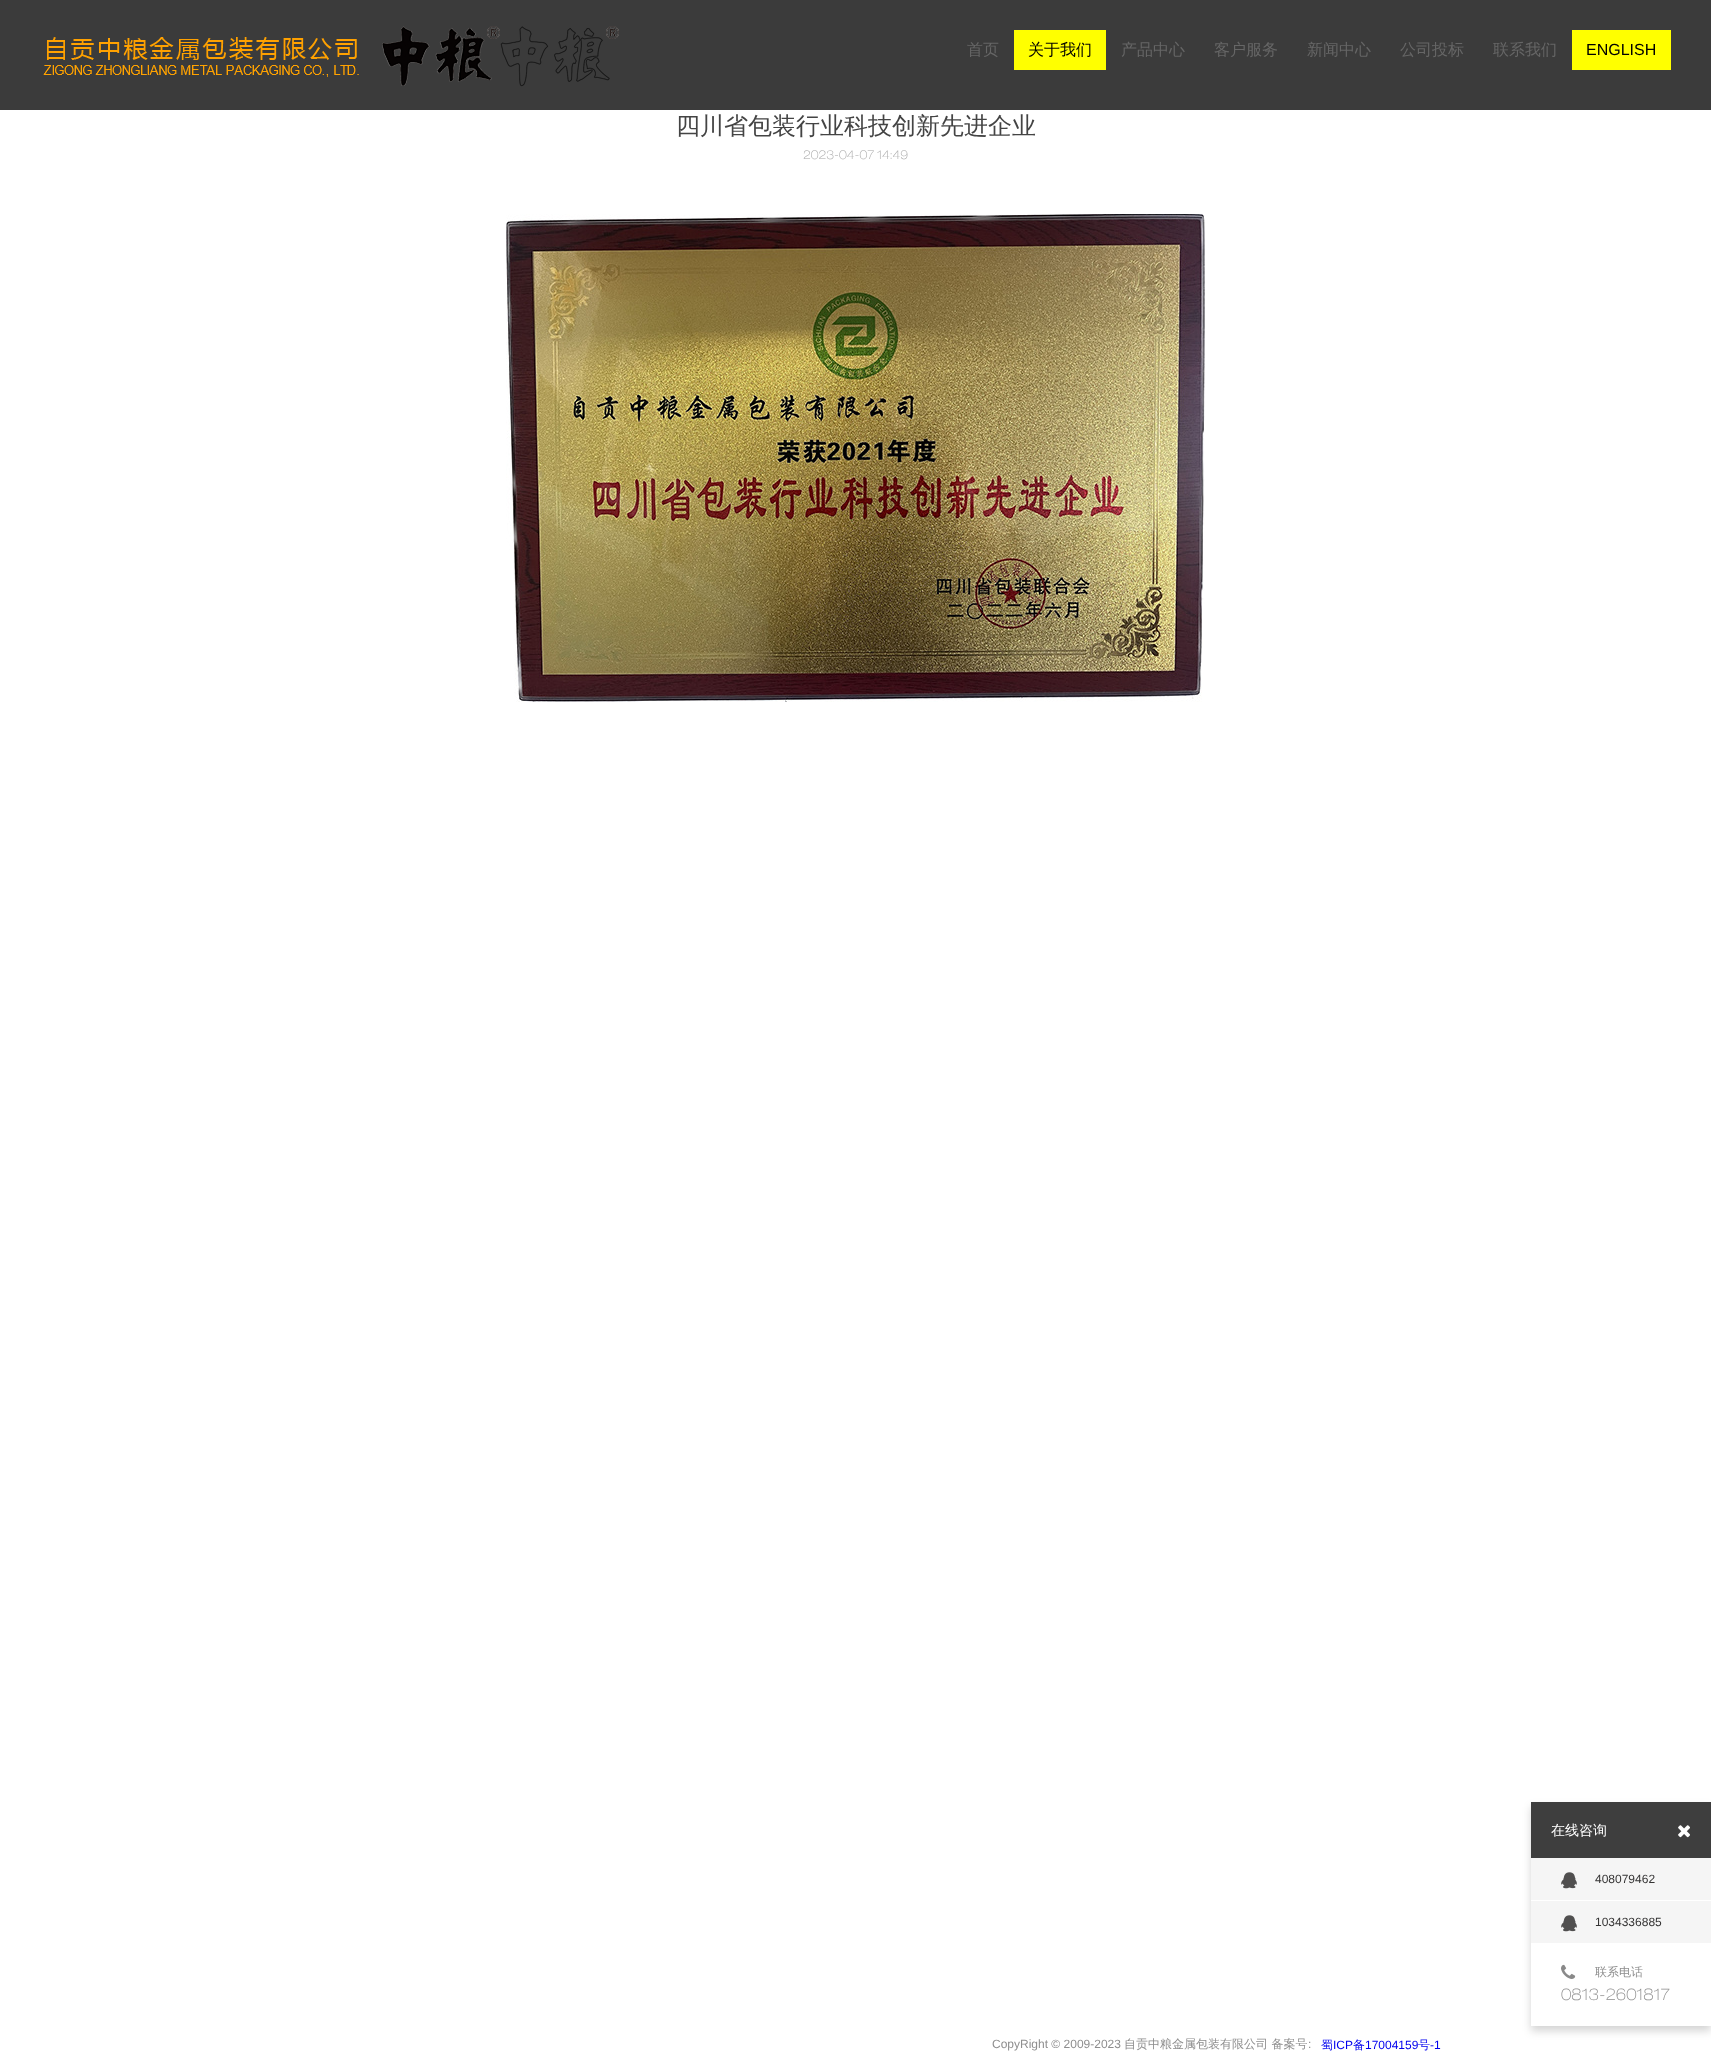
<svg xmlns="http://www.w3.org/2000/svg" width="1711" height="2062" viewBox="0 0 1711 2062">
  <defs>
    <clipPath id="clip1"><path d="M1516 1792H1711V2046H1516ZM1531 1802H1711V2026H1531Z" clip-rule="evenodd"/></clipPath>
    <filter id="blur1" x="-50%" y="-200%" width="200%" height="500%"><feGaussianBlur stdDeviation="4.5"/></filter>
  </defs>
  <rect width="100%" height="100%" fill="#ffffff"/>
  <rect x="0" y="0" width="1711" height="110" fill="#3b3b3b"/>
  <image x="43" y="26" width="576" height="61" href="img1.png"/>
  <text x="967" y="55" font-family="WenQuanYi Zen Hei" font-size="16" font-weight="500" fill="#666666">首页</text>
  <rect x="1014" y="30" width="92" height="40" fill="#ffff00"/>
  <text x="1028" y="55" font-family="WenQuanYi Zen Hei" font-size="16" font-weight="500" fill="#000000">关于我们</text>
  <text x="1121" y="55" font-family="WenQuanYi Zen Hei" font-size="16" font-weight="500" fill="#666666">产品中心</text>
  <text x="1214" y="55" font-family="WenQuanYi Zen Hei" font-size="16" font-weight="500" fill="#666666">客户服务</text>
  <text x="1307" y="55" font-family="WenQuanYi Zen Hei" font-size="16" font-weight="500" fill="#666666">新闻中心</text>
  <text x="1400" y="55" font-family="WenQuanYi Zen Hei" font-size="16" font-weight="500" fill="#666666">公司投标</text>
  <text x="1493" y="55" font-family="WenQuanYi Zen Hei" font-size="16" font-weight="500" fill="#666666">联系我们</text>
  <rect x="1572" y="30" width="99" height="40" fill="#ffff00"/>
  <text x="1586" y="55" font-family="Liberation Sans" font-size="16" fill="#000000">ENGLISH</text>
  <text x="676" y="134" font-family="WenQuanYi Zen Hei" font-size="24" font-weight="500" fill="#444444">四川省包装行业科技创新先进企业</text>
  <text x="803" y="159" font-family="Helvetica Neue" font-size="12" font-weight="200" fill="#a5a5a5">2023-04-07 14:49</text>
  <image x="506" y="214" width="699" height="488" href="img2.png"/>
  <g clip-path="url(#clip1)">
    <rect x="1531" y="1807" width="180" height="224" fill="#040000" fill-opacity="0.17" filter="url(#blur1)"/>
  </g>
  <rect x="1531" y="1802" width="180" height="56" fill="#3e3e3e"/>
  <text x="1551" y="1835" font-family="WenQuanYi Zen Hei" font-size="14" font-weight="500" fill="#ffffff">在线咨询</text>
  <image x="1678" y="1825" width="12" height="13" href="img3.png"/>
  <rect x="1531" y="1858" width="180" height="42" fill="#f5f5f5"/>
  <image x="1561" y="1872" width="16" height="17" href="img4.png"/>
  <text x="1595" y="1883" font-family="Liberation Sans" font-size="12" fill="#353434">408079462</text>
  <rect x="1531" y="1901" width="180" height="42" fill="#f5f5f5"/>
  <image x="1561" y="1915" width="16" height="17" href="img4.png"/>
  <text x="1595" y="1926" font-family="Liberation Sans" font-size="12" fill="#353434">1034336885</text>
  <image x="1561" y="1964" width="15" height="15" href="img5.png"/>
  <text x="1595" y="1976" font-family="WenQuanYi Zen Hei" font-size="12" font-weight="500" fill="#8e8e8e">联系电话</text>
  <text x="1561" y="2000" font-family="Helvetica Neue" font-size="16" font-weight="200" fill="#8e8e8e">0813-2601817</text>
  <text x="992" y="2048" font-family="Liberation Sans" font-size="12" fill="#8e8e8e">CopyRight © 2009-2023</text>
  <text x="1124" y="2048" font-family="WenQuanYi Zen Hei" font-size="12" font-weight="500" fill="#8e8e8e">自贡中粮金属包装有限公司 备案号</text>
  <text x="1308" y="2048" font-family="Liberation Sans" font-size="12" fill="#8e8e8e">:</text>
  <text x="1321" y="2049" font-family="WenQuanYi Zen Hei" font-size="12" font-weight="500" fill="#0000ee">蜀</text>
  <text x="1333" y="2049" font-family="Liberation Sans" font-size="12" fill="#0000ee">ICP</text>
  <text x="1353" y="2049" font-family="WenQuanYi Zen Hei" font-size="12" font-weight="500" fill="#0000ee">备</text>
  <text x="1365" y="2049" font-family="Liberation Sans" font-size="12" fill="#0000ee">17004159</text>
  <text x="1418" y="2049" font-family="WenQuanYi Zen Hei" font-size="12" font-weight="500" fill="#0000ee">号</text>
  <text x="1430" y="2049" font-family="Liberation Sans" font-size="12" fill="#0000ee">-1</text>
</svg>
